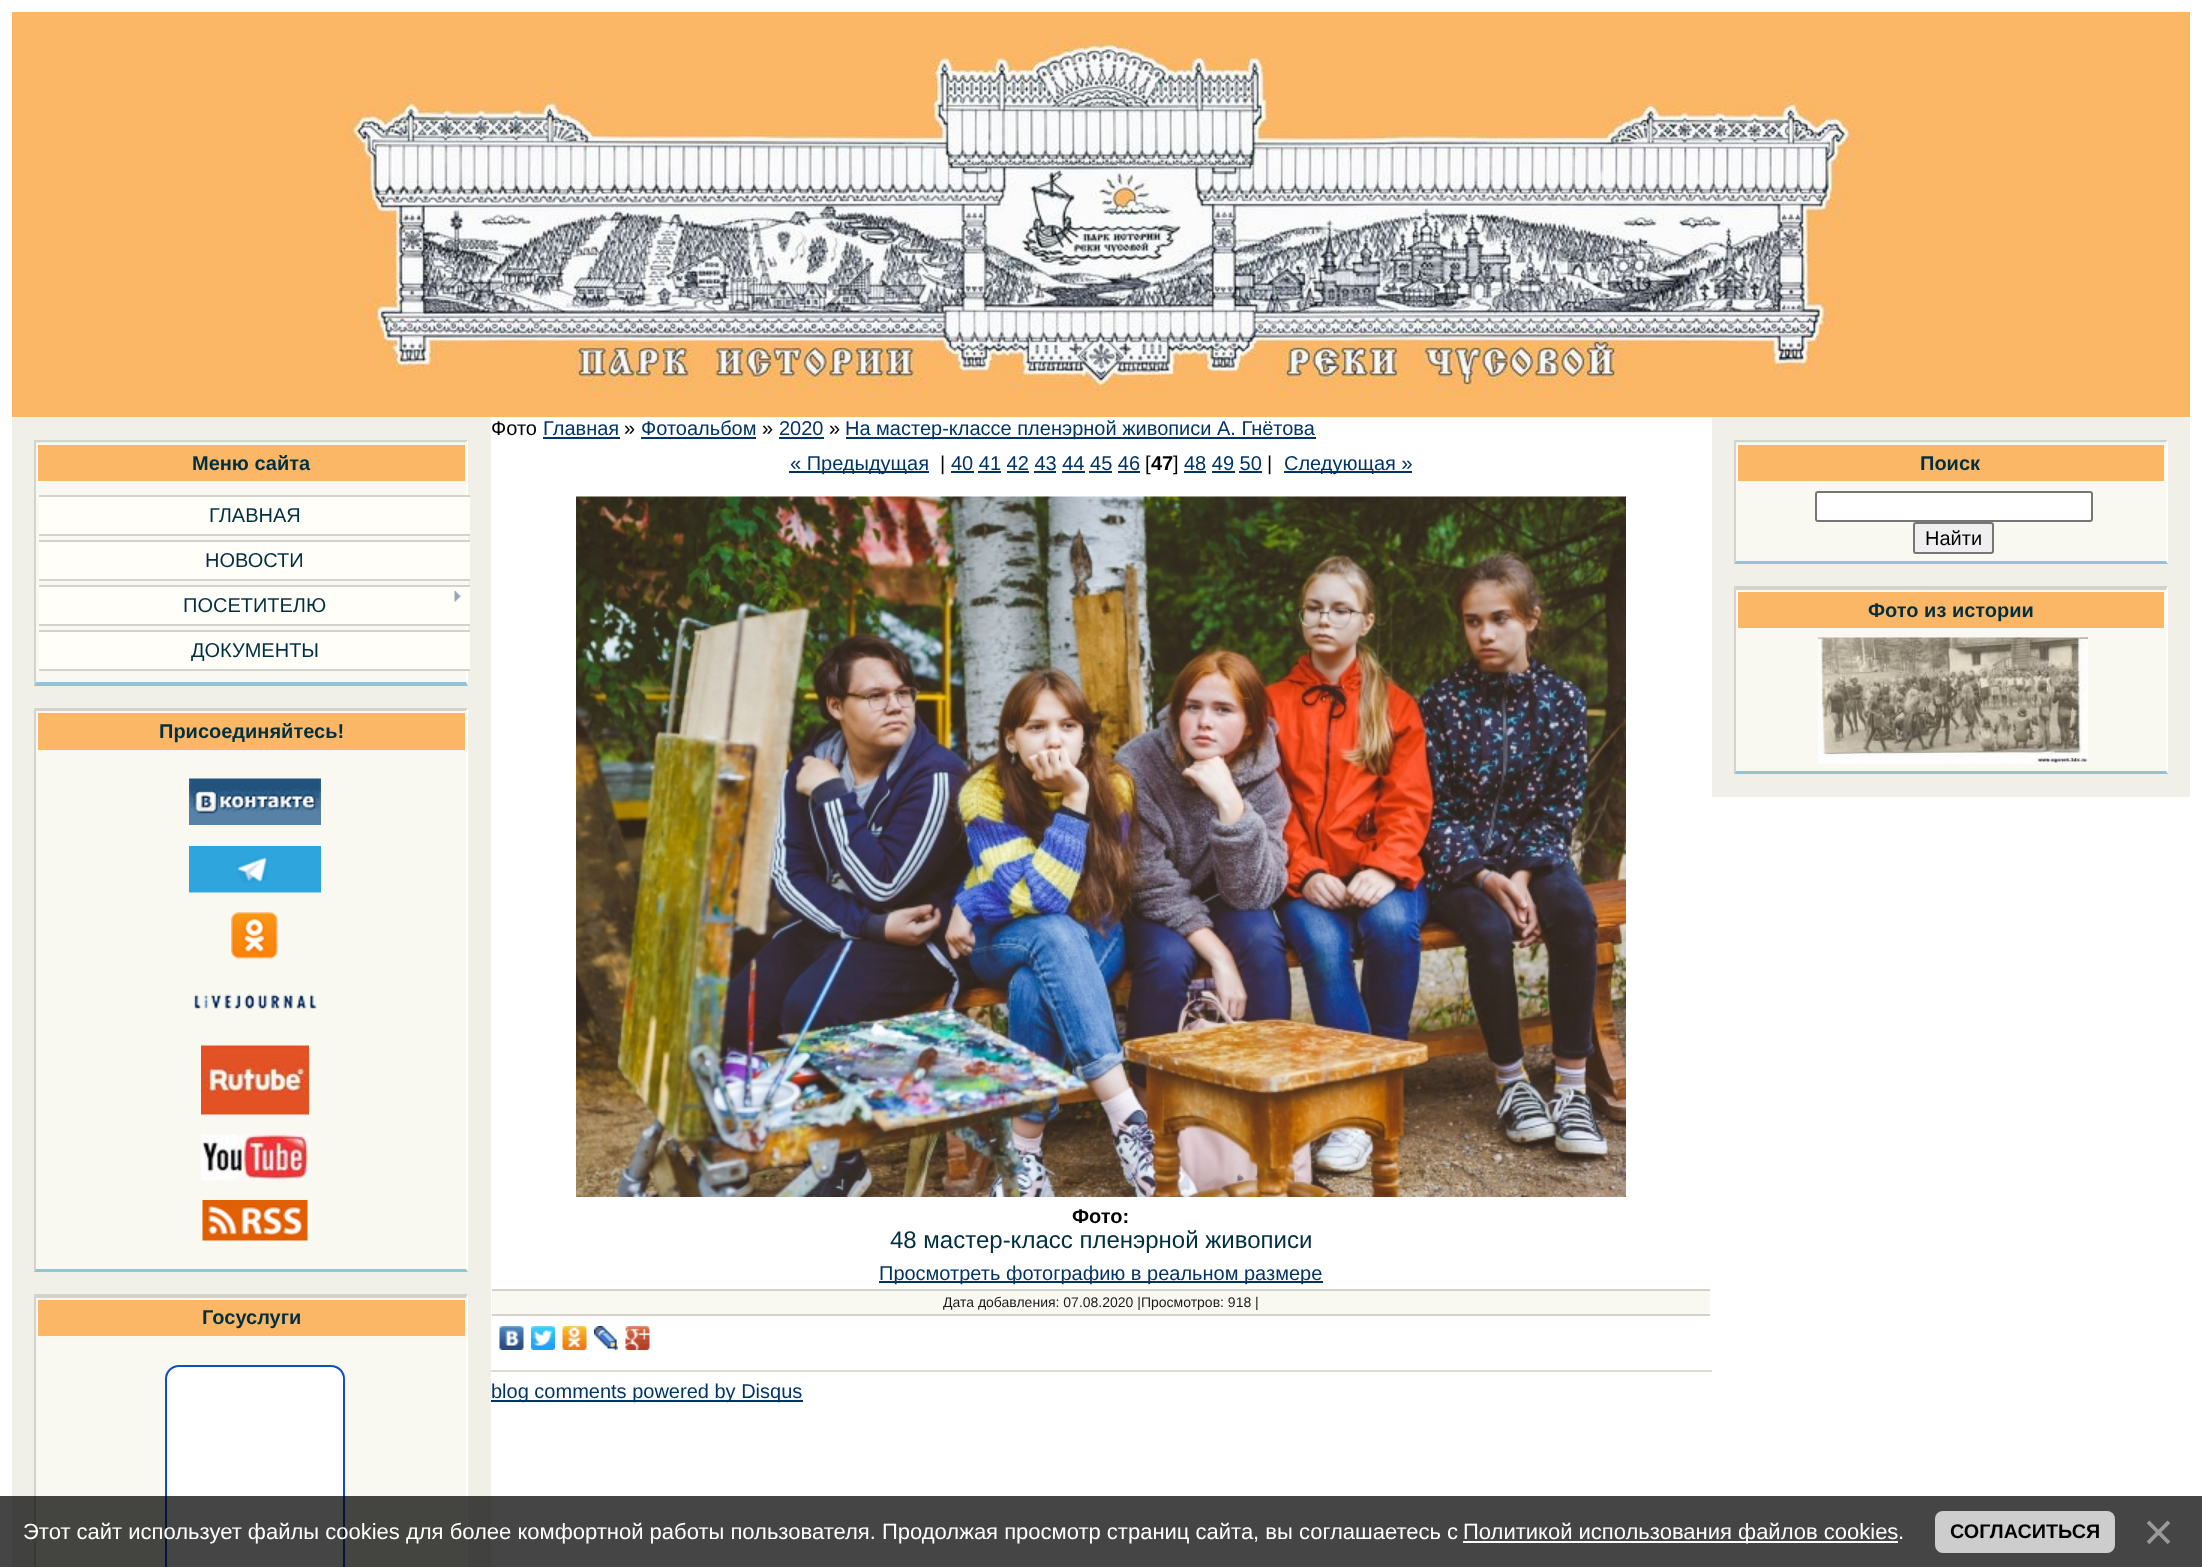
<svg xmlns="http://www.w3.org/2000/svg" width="2202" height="1567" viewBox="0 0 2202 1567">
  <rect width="100%" height="100%" fill="#ffffff"/>
  <rect x="12" y="12" width="2178" height="405" fill="#fbb766"/>
  <image x="341" y="34" width="1528" height="362" href="img1.png"/>
  <rect x="12" y="417" width="479" height="1150" fill="#f1f0e8"/>
  <rect x="36" y="483" width="431" height="200" fill="#faf9f1"/>
  <path d="M34 440H468L466 442H36Z" fill="#d3d2cb"/>
  <path d="M468 440V686L466 682V442Z" fill="#ffffff"/>
  <path d="M468 686H34L36 682H466Z" fill="#93c3d7"/>
  <path d="M34 686V440L36 442V682Z" fill="#d3d2cb"/>
  <rect x="37" y="444" width="429" height="38" fill="#fbb766" stroke="#faf9f1" stroke-width="2"/>
  <text x="192" y="470" font-family="Liberation Sans" font-size="20" font-weight="bold" fill="#003040">Меню сайта</text>
  <rect x="39" y="497" width="431" height="37" fill="#fffef9"/>
  <rect x="39" y="495" width="431" height="2" fill="#d3d2cb"/>
  <rect x="39" y="534" width="431" height="2" fill="#d3d2cb"/>
  <text x="209" y="522" font-family="Liberation Sans" font-size="20" fill="#003040">ГЛАВНАЯ</text>
  <rect x="39" y="542" width="431" height="37" fill="#fffef9"/>
  <rect x="39" y="540" width="431" height="2" fill="#d3d2cb"/>
  <rect x="39" y="579" width="431" height="2" fill="#d3d2cb"/>
  <text x="205" y="567" font-family="Liberation Sans" font-size="20" fill="#003040">НОВОСТИ</text>
  <rect x="39" y="587" width="431" height="37" fill="#fffef9"/>
  <rect x="39" y="585" width="431" height="2" fill="#d3d2cb"/>
  <rect x="39" y="624" width="431" height="2" fill="#d3d2cb"/>
  <image x="454" y="591" width="7" height="11" href="img2.png"/>
  <text x="183" y="612" font-family="Liberation Sans" font-size="20" fill="#003040">ПОСЕТИТЕЛЮ</text>
  <rect x="39" y="632" width="431" height="37" fill="#fffef9"/>
  <rect x="39" y="630" width="431" height="2" fill="#d3d2cb"/>
  <rect x="39" y="669" width="431" height="2" fill="#d3d2cb"/>
  <text x="191" y="657" font-family="Liberation Sans" font-size="20" fill="#003040">ДОКУМЕНТЫ</text>
  <rect x="36" y="752" width="430" height="517" fill="#faf9f1"/>
  <path d="M34 708H468L466 711H36Z" fill="#d3d2cb"/>
  <path d="M468 708V1272L466 1269V711Z" fill="#ffffff"/>
  <path d="M468 1272H34L36 1269H466Z" fill="#93c3d7"/>
  <path d="M34 1272V708L36 711V1269Z" fill="#d3d2cb"/>
  <rect x="37" y="712" width="429" height="39" fill="#fbb766" stroke="#faf9f1" stroke-width="2"/>
  <text x="159" y="738" font-family="Liberation Sans" font-size="20" font-weight="bold" fill="#003040">Присоединяйтесь!</text>
  <image x="189" y="778" width="132" height="47" href="img3.png"/>
  <image x="189" y="846" width="132" height="47" href="img4.png"/>
  <image x="231" y="912" width="47" height="47" href="img5.png"/>
  <image x="193" y="994" width="124" height="16" href="img6.png"/>
  <image x="201" y="1045" width="108" height="70" href="img7.png"/>
  <image x="201" y="1134" width="108" height="47" href="img8.png"/>
  <image x="202" y="1200" width="106" height="41" href="img9.png"/>
  <rect x="36" y="1338" width="430" height="229" fill="#faf9f1"/>
  <path d="M34 1294H468L466 1298H36Z" fill="#d3d2cb"/>
  <path d="M468 1294V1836L466 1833V1298Z" fill="#ffffff"/>
  <path d="M34 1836V1294L36 1298V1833Z" fill="#d3d2cb"/>
  <rect x="37" y="1299" width="429" height="38" fill="#fbb766" stroke="#faf9f1" stroke-width="2"/>
  <text x="202" y="1324" font-family="Liberation Sans" font-size="20" font-weight="bold" fill="#003040">Госуслуги</text>
  <rect x="166" y="1366" width="178" height="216" rx="13" fill="#ffffff" stroke="#0d4cd3" stroke-width="2"/>
  <text x="491" y="435" font-family="Liberation Sans" font-size="20" fill="#000000">Фото</text>
  <text x="543" y="435" font-family="Liberation Sans" font-size="20" fill="#003366">Главная</text>
  <rect x="543" y="437" width="77" height="2" fill="#003366"/>
  <text x="624" y="435" font-family="Liberation Sans" font-size="20" fill="#000000">»</text>
  <text x="641" y="435" font-family="Liberation Sans" font-size="20" fill="#003366">Фотоальбом</text>
  <rect x="641" y="437" width="115" height="2" fill="#003366"/>
  <text x="762" y="435" font-family="Liberation Sans" font-size="20" fill="#000000">»</text>
  <text x="779" y="435" font-family="Liberation Sans" font-size="20" fill="#003366">2020</text>
  <rect x="779" y="437" width="45" height="2" fill="#003366"/>
  <text x="829" y="435" font-family="Liberation Sans" font-size="20" fill="#000000">»</text>
  <rect x="846" y="437" width="470" height="2" fill="#003366"/>
  <text x="845" y="435" font-family="Liberation Sans" font-size="20" fill="#003366">На мастер-классе пленэрной живописи А. Гнётова</text>
  <rect x="789" y="471" width="140" height="2" fill="#003366"/>
  <text x="790" y="470" font-family="Liberation Sans" font-size="20" fill="#003366">« Предыдущая</text>
  <text x="940" y="470" font-family="Liberation Sans" font-size="20" fill="#000000">|</text>
  <text x="951" y="470" font-family="Liberation Sans" font-size="20" fill="#003366">40 41 42 43 44 45 46</text>
  <rect x="951" y="471" width="23" height="2" fill="#003366"/>
  <text x="1145" y="470" font-family="Liberation Sans" font-size="20" fill="#000000">[</text>
  <text x="1151" y="470" font-family="Liberation Sans" font-size="20" font-weight="bold" fill="#000000">47</text>
  <text x="1173" y="470" font-family="Liberation Sans" font-size="20" fill="#000000">]</text>
  <text x="1184" y="470" font-family="Liberation Sans" font-size="20" fill="#003366">48 49 50</text>
  <rect x="1184" y="471" width="22" height="2" fill="#003366"/>
  <text x="1267" y="470" font-family="Liberation Sans" font-size="20" fill="#000000">|</text>
  <rect x="1284" y="471" width="128" height="2" fill="#003366"/>
  <text x="1284" y="470" font-family="Liberation Sans" font-size="20" fill="#003366">Следующая »</text>
  <rect x="978" y="471" width="23" height="2" fill="#003366"/>
  <rect x="1007" y="471" width="22" height="2" fill="#003366"/>
  <rect x="1034" y="471" width="22" height="2" fill="#003366"/>
  <rect x="1062" y="471" width="23" height="2" fill="#003366"/>
  <rect x="1089" y="471" width="23" height="2" fill="#003366"/>
  <rect x="1118" y="471" width="22" height="2" fill="#003366"/>
  <rect x="1212" y="471" width="23" height="2" fill="#003366"/>
  <rect x="1239" y="471" width="23" height="2" fill="#003366"/>
  <image x="576" y="496" width="1050" height="701" href="img10.png"/>
  <text x="1072" y="1223" font-family="Liberation Sans" font-size="20" font-weight="bold" fill="#000000">Фото:</text>
  <text x="890" y="1248" font-family="Liberation Sans" font-size="24" fill="#003040">48 мастер-класс пленэрной живописи</text>
  <rect x="879" y="1281" width="444" height="2" fill="#003366"/>
  <text x="879" y="1280" font-family="Liberation Sans" font-size="20" fill="#003366">Просмотреть фотографию в реальном размере</text>
  <rect x="492" y="1291" width="1218" height="23" fill="#faf9f1"/>
  <rect x="492" y="1289" width="1218" height="2" fill="#d3d2cb"/>
  <rect x="492" y="1314" width="1218" height="2" fill="#d3d2cb"/>
  <text x="943" y="1307" font-family="Liberation Sans" font-size="14" fill="#1a1a1a">Дата добавления: 07.08.2020 |Просмотров: 918 |</text>
  <image x="499" y="1326" width="25" height="24" href="img11.png"/>
  <image x="531" y="1326" width="24" height="24" href="img12.png"/>
  <image x="562" y="1326" width="25" height="24" href="img13.png"/>
  <image x="594" y="1326" width="24" height="24" href="img14.png"/>
  <image x="625" y="1326" width="25" height="24" href="img15.png"/>
  <rect x="491" y="1370" width="1221" height="2" fill="#dcdbd4"/>
  <rect x="491" y="1400" width="312" height="2" fill="#003366"/>
  <text x="491" y="1398" font-family="Liberation Sans" font-size="20" fill="#003366">blog comments powered by Disqus</text>
  <rect x="1712" y="417" width="478" height="380" fill="#f1f0e8"/>
  <rect x="1736" y="483" width="430" height="78" fill="#faf9f1"/>
  <path d="M1734 440H2168L2166 442H1736Z" fill="#d3d2cb"/>
  <path d="M2168 440V564L2166 561V442Z" fill="#ffffff"/>
  <path d="M2168 564H1734L1736 561H2166Z" fill="#93c3d7"/>
  <path d="M1734 564V440L1736 442V561Z" fill="#d3d2cb"/>
  <rect x="1737" y="444" width="428" height="38" fill="#fbb766" stroke="#faf9f1" stroke-width="2"/>
  <text x="1920" y="470" font-family="Liberation Sans" font-size="20" font-weight="bold" fill="#003040">Поиск</text>
  <rect x="1816" y="492" width="276" height="29" rx="2" fill="#ffffff" stroke="#767676" stroke-width="2"/>
  <rect x="1914" y="523" width="79" height="30" rx="2" fill="#efefef" stroke="#767676" stroke-width="2"/>
  <text x="1925" y="545" font-family="Liberation Sans" font-size="20" fill="#000000">Найти</text>
  <rect x="1736" y="630" width="430" height="141" fill="#faf9f1"/>
  <path d="M1734 586H2168L2166 590H1736Z" fill="#d3d2cb"/>
  <path d="M2168 586V774L2166 771V590Z" fill="#ffffff"/>
  <path d="M2168 774H1734L1736 771H2166Z" fill="#93c3d7"/>
  <path d="M1734 774V586L1736 590V771Z" fill="#d3d2cb"/>
  <rect x="1737" y="591" width="428" height="38" fill="#fbb766" stroke="#faf9f1" stroke-width="2"/>
  <text x="1868" y="617" font-family="Liberation Sans" font-size="20" font-weight="bold" fill="#003040">Фото из истории</text>
  <image x="1818" y="637" width="270" height="127" href="img16.png"/>
  <rect x="0" y="1496" width="2202" height="71" fill="#000000" fill-opacity="0.73"/>
  <text x="23" y="1539" font-family="Liberation Sans" font-size="22" fill="#ffffff">Этот сайт использует файлы cookies для более комфортной работы пользователя. Продолжая просмотр страниц сайта, вы соглашаетесь с</text>
  <rect x="1463" y="1541" width="435" height="2" fill="#ffffff"/>
  <text x="1463" y="1539" font-family="Liberation Sans" font-size="22" fill="#ffffff">Политикой использования файлов cookies</text>
  <text x="1898" y="1539" font-family="Liberation Sans" font-size="22" fill="#ffffff">.</text>
  <rect x="1935" y="1511" width="180" height="42" rx="8" fill="#cdcdcd"/>
  <text x="1950" y="1538" font-family="Liberation Sans" font-size="19.75" font-weight="bold" fill="#000000">СОГЛАСИТЬСЯ</text>
  <text x="2143" y="1550" font-family="Liberation Sans" font-size="53" fill="#999999">×</text>
</svg>
